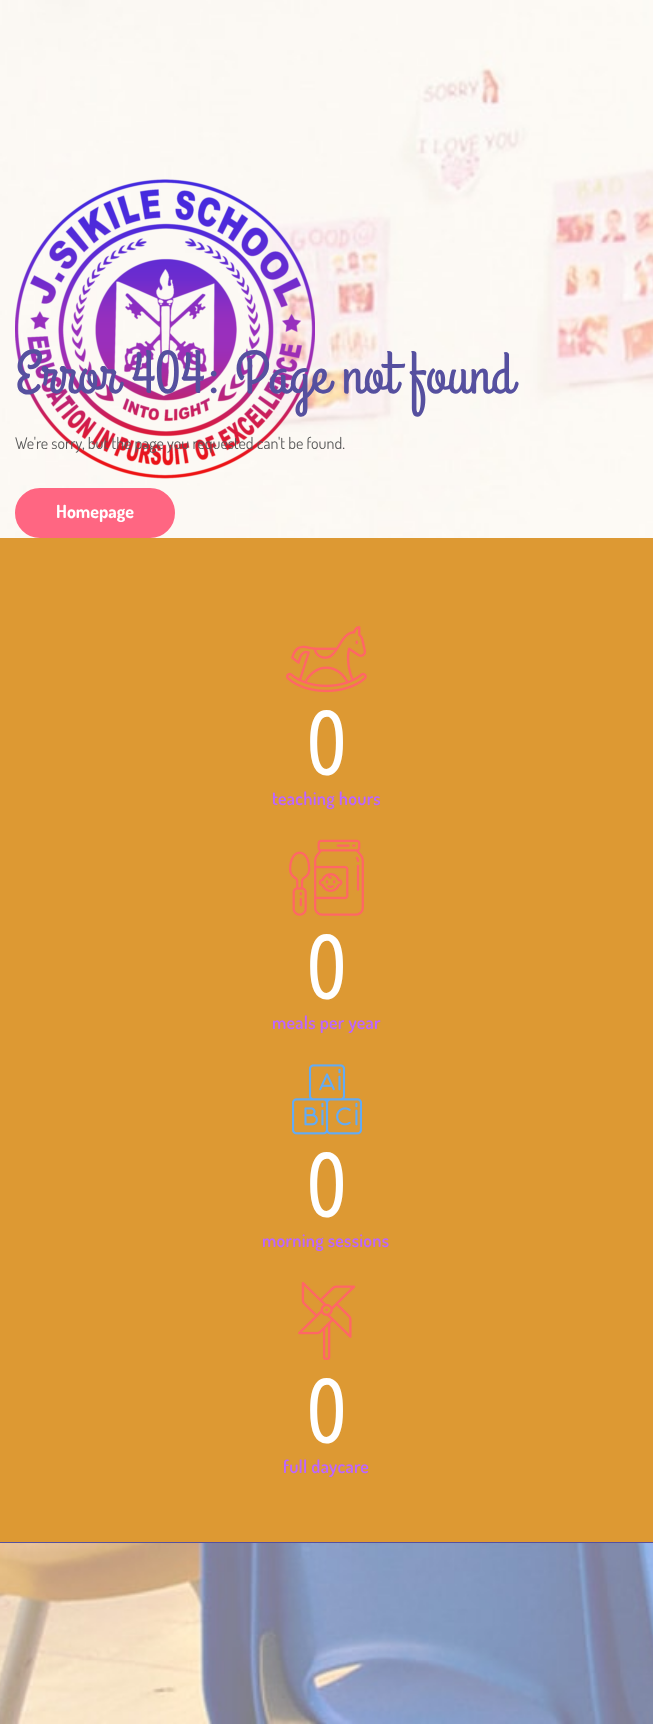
<svg xmlns="http://www.w3.org/2000/svg" width="653" height="1724" viewBox="0 0 653 1724">
  <rect width="100%" height="100%" fill="#ffffff"/>
  <image x="0" y="0" width="653" height="1724" href="img1.png"/>
  <image x="15" y="179" width="300" height="300" href="img2.png"/>
  <text x="15" y="392" font-family="Grand Hotel" font-size="60" fill="#56509f">Error 404: Page not found</text>
  <text x="15" y="449" font-family="Dosis" font-size="16" fill="#595959">We're sorry, but the page you requested can't be found.</text>
  <rect x="16" y="489" width="158" height="48" rx="24" fill="#ff6682" stroke="#ff6682" stroke-width="2"/>
  <text x="56" y="518" font-family="Dosis" font-size="18" font-weight="bold" fill="#ffffff">Homepage</text>
  <rect x="0" y="538" width="653" height="1004" fill="#dd9933"/>
  <image x="286" y="626" width="81" height="67" href="img3.png"/>
  <text x="307" y="773" font-family="Grand Hotel" font-size="90" fill="#ffffff">0</text>
  <text x="272" y="805" font-family="Dosis" font-size="18" font-weight="600" letter-spacing="0.25" fill="#bd66ff">teaching hours</text>
  <image x="289" y="839" width="75" height="77" href="img4.png"/>
  <text x="307" y="997" font-family="Grand Hotel" font-size="90" fill="#ffffff">0</text>
  <text x="272" y="1029" font-family="Dosis" font-size="18" font-weight="600" letter-spacing="0.25" fill="#bd66ff">meals per year</text>
  <image x="292" y="1064" width="70" height="71" href="img5.png"/>
  <text x="307" y="1215" font-family="Grand Hotel" font-size="90" fill="#ffffff">0</text>
  <text x="262" y="1247" font-family="Dosis" font-size="18" font-weight="600" letter-spacing="0.25" fill="#bd66ff">morning sessions</text>
  <image x="298" y="1282" width="58" height="78" href="img6.png"/>
  <text x="307" y="1441" font-family="Grand Hotel" font-size="90" fill="#ffffff">0</text>
  <text x="283" y="1473" font-family="Dosis" font-size="18" font-weight="600" letter-spacing="0.25" fill="#bd66ff">full daycare</text>
  <rect x="0" y="1542" width="653" height="1" fill="#56509f"/>
</svg>
